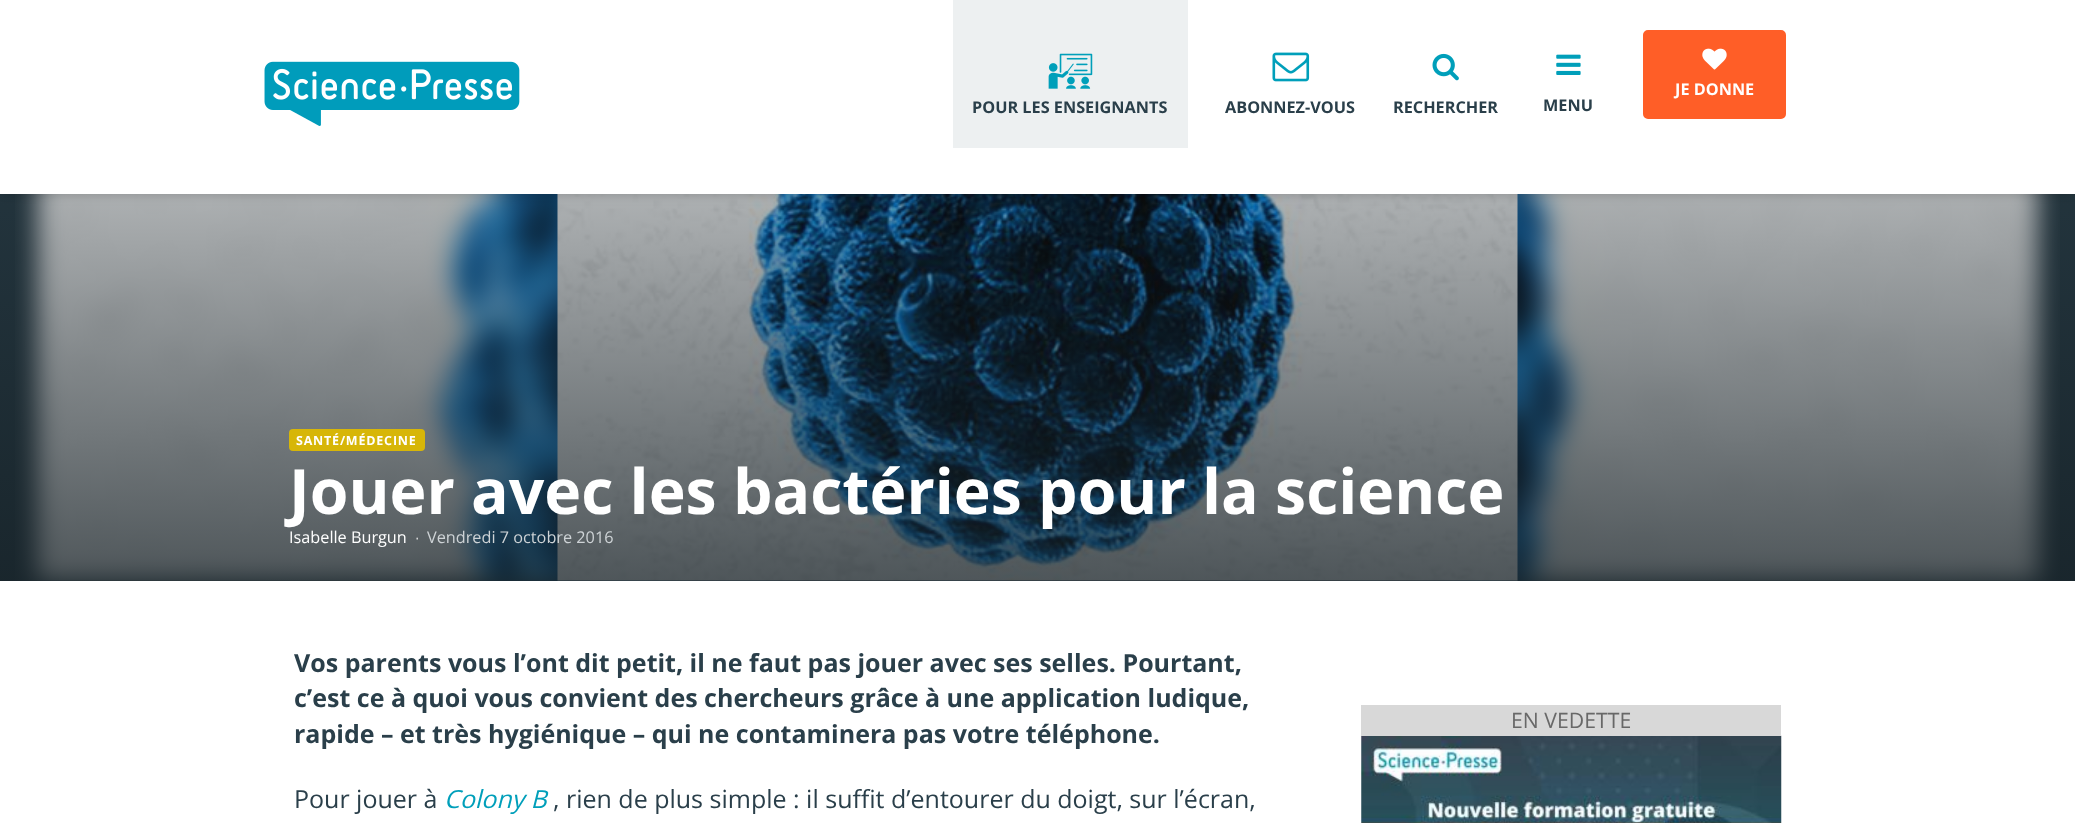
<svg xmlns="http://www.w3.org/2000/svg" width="2075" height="823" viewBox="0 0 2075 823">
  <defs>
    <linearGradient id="g1" gradientUnits="userSpaceOnUse" x1="1038" y1="581" x2="1038" y2="-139"><stop offset="0" stop-color="#141e23" stop-opacity="0.75"/><stop offset="1" stop-color="#141e23" stop-opacity="0"/></linearGradient>
    <filter id="blur1" x="-50%" y="-200%" width="200%" height="500%"><feGaussianBlur stdDeviation="6"/></filter>
  </defs>
  <rect width="100%" height="100%" fill="#ffffff"/>
  <rect x="0" y="194" width="2075" height="387" fill="#2a3f4a"/>
  <image x="15" y="194" width="2045" height="387" href="img7.png"/>
  <image x="557" y="194" width="961" height="387" href="img8.png"/>
  <rect x="0" y="194" width="2075" height="387" fill="url(#g1)"/>
  <rect x="0" y="0" width="2075" height="194" fill="#141e23" fill-opacity="0.2" filter="url(#blur1)"/>
  <rect x="0" y="0" width="2075" height="194" fill="#ffffff"/>
  <image x="264" y="61" width="256" height="65" href="img1.png"/>
  <rect x="1644.5" y="31.5" width="140" height="86" rx="3.5" fill="#ff5e27" stroke="#ff5e27" stroke-width="3"/>
  <image x="1702" y="48" width="25" height="22" href="img2.png"/>
  <text x="1675" y="95" font-family="Open Sans" font-size="16.25" font-weight="bold" fill="#ffffff">JE DONNE</text>
  <rect x="953" y="0" width="235" height="148" fill="#edf0f1"/>
  <image x="1048" y="53" width="45" height="36" href="img3.png"/>
  <text x="972" y="113" font-family="Open Sans" font-size="16.25" font-weight="bold" fill="#2a3f4a">POUR LES ENSEIGNANTS</text>
  <image x="1272" y="52" width="38" height="30" href="img4.png"/>
  <text x="1225" y="113" font-family="Open Sans" font-size="16.25" font-weight="bold" fill="#2a3f4a">ABONNEZ-VOUS</text>
  <image x="1432" y="53" width="27" height="28" href="img5.png"/>
  <text x="1393" y="113" font-family="Open Sans" font-size="16.25" font-weight="bold" fill="#2a3f4a">RECHERCHER</text>
  <image x="1556" y="54" width="25" height="21" href="img6.png"/>
  <text x="1543" y="111" font-family="Open Sans" font-size="16.25" font-weight="bold" fill="#2a3f4a">MENU</text>
  <rect x="289" y="429" width="136" height="22" rx="4" fill="#d7b608"/>
  <text x="296" y="445" font-family="Open Sans" font-size="12.5" font-weight="bold" letter-spacing="0.8" fill="#ffffff">SANTÉ/MÉDECINE</text>
  <text x="289" y="514" font-family="Open Sans" font-size="62.5" font-weight="bold" fill="#ffffff">Jouer avec les bactéries pour la science</text>
  <text x="289" y="543" font-family="Open Sans" font-size="16.25" fill="#ffffff">Isabelle Burgun</text>
  <text x="415" y="543" font-family="Liberation Sans" font-size="16.25" fill="#d5d7d8">∙</text>
  <text x="427" y="543" font-family="Open Sans" font-size="16.25" fill="#ced3d6">Vendredi 7 octobre 2016</text>
  <text x="294" y="672" font-family="Open Sans" font-size="25" font-weight="bold" fill="#2a3f4a">Vos parents vous l’ont dit petit, il ne faut pas jouer avec ses selles. Pourtant,</text>
  <text x="294" y="707" font-family="Open Sans" font-size="25" font-weight="bold" fill="#2a3f4a">c’est ce à quoi vous convient des chercheurs grâce à une application ludique,</text>
  <text x="294" y="743" font-family="Open Sans" font-size="25" font-weight="bold" fill="#2a3f4a">rapide – et très hygiénique – qui ne contaminera pas votre téléphone.</text>
  <text x="294" y="808" font-family="Open Sans" font-size="25" fill="#2a3f4a">Pour jouer à</text>
  <text x="444" y="808" font-family="Open Sans" font-size="25" font-style="italic" fill="#009fba">Colony B</text>
  <text x="553" y="808" font-family="Open Sans" font-size="25" fill="#2a3f4a">, rien de plus simple : il suffit d’entourer du doigt, sur l’écran,</text>
  <image x="1361" y="735" width="421" height="88" href="img9.png"/>
  <rect x="1361" y="705" width="420" height="31" fill="#d8d8d8"/>
  <text x="1511" y="728" font-family="Open Sans" font-size="21.25" fill="#686868">EN VEDETTE</text>
</svg>
